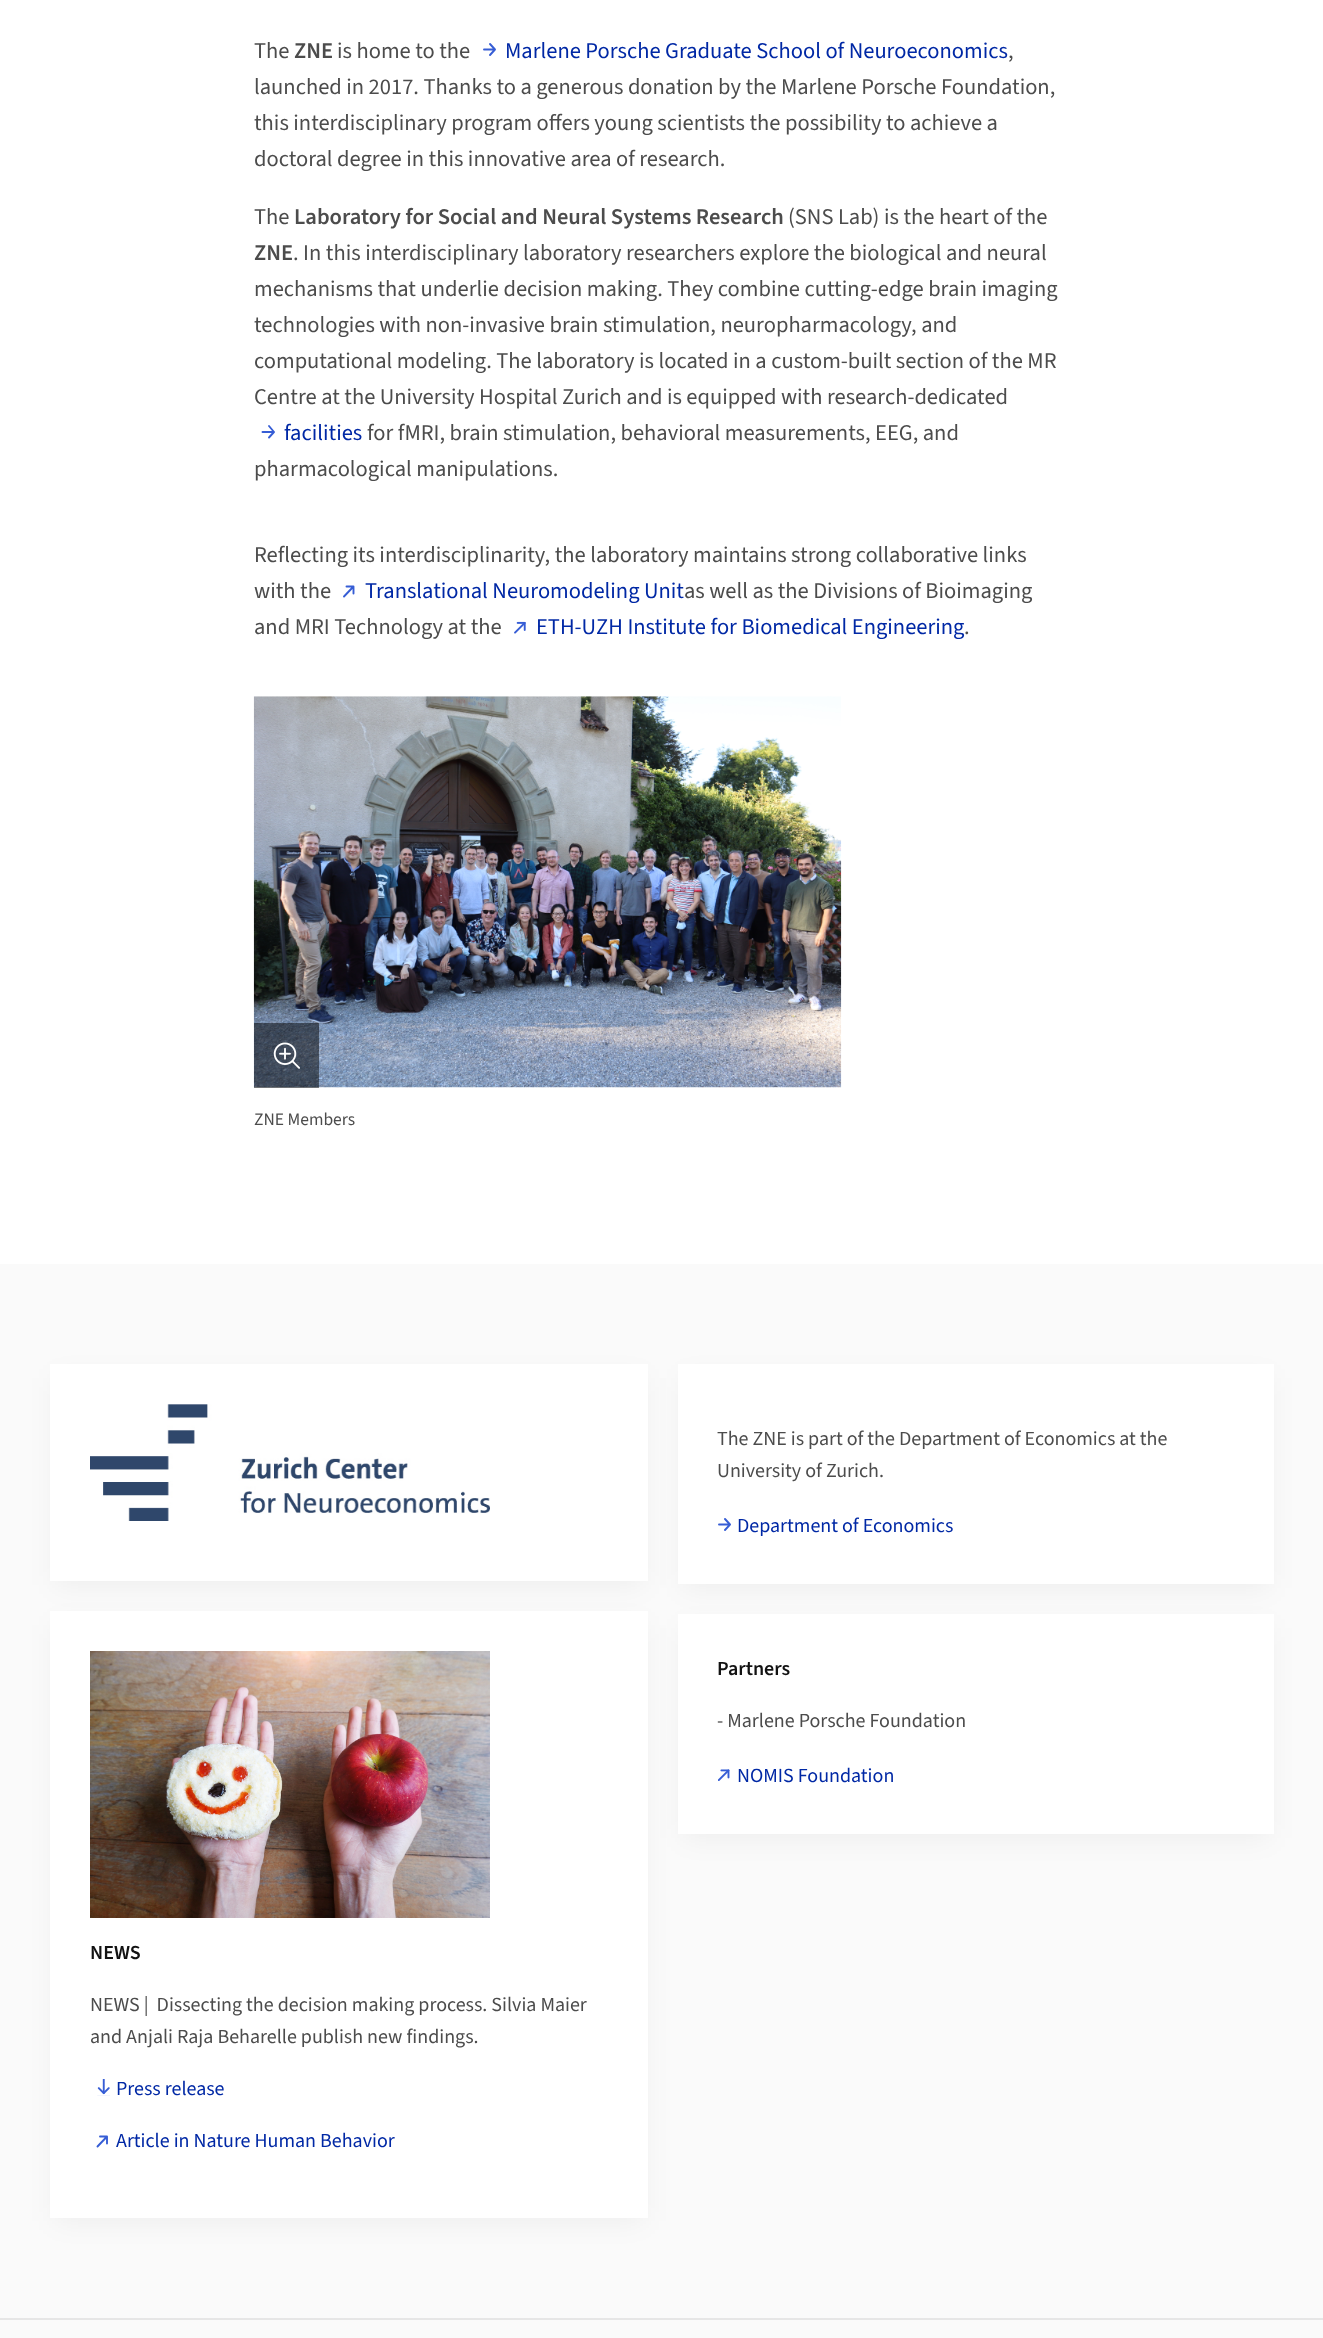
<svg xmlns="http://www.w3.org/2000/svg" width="1323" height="2338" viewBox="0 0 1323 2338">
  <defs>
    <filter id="blur1" x="-50%" y="-200%" width="200%" height="500%"><feGaussianBlur stdDeviation="14"/></filter>
  </defs>
  <rect width="100%" height="100%" fill="#ffffff"/>
  <text x="254" y="58" font-family="'Source Sans 3'" font-size="22.5" fill="#4c4c4c">The</text>
  <text x="294" y="58" font-family="'Source Sans 3'" font-size="22.5" font-weight="600" fill="#4c4c4c">ZNE</text>
  <text x="337" y="58" font-family="'Source Sans 3'" font-size="22.5" fill="#4c4c4c">is home to the</text>
  <path d="M490 44L495 49.5M495 49.5L490 55M495 49.5H484" fill="none" stroke="#365dd5" stroke-width="1.9" stroke-linecap="round" stroke-linejoin="round"/>
  <text x="505" y="58" font-family="'Source Sans 3'" font-size="22.5" fill="#0028a5">Marlene Porsche Graduate School of Neuroeconomics</text>
  <text x="1008" y="58" font-family="'Source Sans 3'" font-size="22.5" fill="#4c4c4c">,</text>
  <text x="254" y="94" font-family="'Source Sans 3'" font-size="22.5" fill="#4c4c4c">launched in 2017. Thanks to a generous donation by the Marlene Porsche Foundation,</text>
  <text x="254" y="130" font-family="'Source Sans 3'" font-size="22.5" fill="#4c4c4c">this interdisciplinary program offers young scientists the possibility to achieve a</text>
  <text x="254" y="166" font-family="'Source Sans 3'" font-size="22.5" fill="#4c4c4c">doctoral degree in this innovative area of research.</text>
  <text x="254" y="224" font-family="'Source Sans 3'" font-size="22.5" fill="#4c4c4c">The</text>
  <text x="294" y="224" font-family="'Source Sans 3'" font-size="22.5" font-weight="600" fill="#4c4c4c">Laboratory for Social and Neural Systems Research</text>
  <text x="788" y="224" font-family="'Source Sans 3'" font-size="22.5" fill="#4c4c4c">(SNS Lab) is the heart of the</text>
  <text x="254" y="260" font-family="'Source Sans 3'" font-size="22.5" font-weight="600" fill="#4c4c4c">ZNE</text>
  <text x="293" y="260" font-family="'Source Sans 3'" font-size="22.5" fill="#4c4c4c">. In this interdisciplinary laboratory researchers explore the biological and neural</text>
  <text x="254" y="296" font-family="'Source Sans 3'" font-size="22.5" fill="#4c4c4c">mechanisms that underlie decision making. They combine cutting-edge brain imaging</text>
  <text x="254" y="332" font-family="'Source Sans 3'" font-size="22.5" fill="#4c4c4c">technologies with non-invasive brain stimulation, neuropharmacology, and</text>
  <text x="254" y="368" font-family="'Source Sans 3'" font-size="22.5" fill="#4c4c4c">computational modeling. The laboratory is located in a custom-built section of the MR</text>
  <text x="254" y="404" font-family="'Source Sans 3'" font-size="22.5" fill="#4c4c4c">Centre at the University Hospital Zurich and is equipped with research-dedicated</text>
  <path d="M269 426L274 432M274 432L269 437.5M274 432H262.5" fill="none" stroke="#365dd5" stroke-width="1.9" stroke-linecap="round" stroke-linejoin="round"/>
  <text x="284" y="440" font-family="'Source Sans 3'" font-size="22.5" fill="#0028a5">facilities</text>
  <text x="367" y="440" font-family="'Source Sans 3'" font-size="22.5" fill="#4c4c4c">for fMRI, brain stimulation, behavioral measurements, EEG, and</text>
  <text x="254" y="476" font-family="'Source Sans 3'" font-size="22.5" fill="#4c4c4c">pharmacological manipulations.</text>
  <text x="254" y="562" font-family="'Source Sans 3'" font-size="22.5" fill="#4c4c4c">Reflecting its interdisciplinarity, the laboratory maintains strong collaborative links</text>
  <text x="254" y="598" font-family="'Source Sans 3'" font-size="22.5" fill="#4c4c4c">with the</text>
  <path d="M344 596.5L353.5 586.5M346.5 586.5H353.5V593.5" fill="none" stroke="#365dd5" stroke-width="1.9" stroke-linecap="round" stroke-linejoin="round"/>
  <text x="365" y="598" font-family="'Source Sans 3'" font-size="22.5" fill="#0028a5">Translational Neuromodeling Unit</text>
  <text x="684" y="598" font-family="'Source Sans 3'" font-size="22.5" fill="#4c4c4c">as well as the Divisions of Bioimaging</text>
  <text x="254" y="634" font-family="'Source Sans 3'" font-size="22.5" fill="#4c4c4c">and MRI Technology at the</text>
  <image x="514" y="621" width="12" height="13" href="img1.png"/>
  <text x="536" y="634" font-family="'Source Sans 3'" font-size="22.5" fill="#0028a5">ETH-UZH Institute for Biomedical Engineering</text>
  <text x="964" y="634" font-family="'Source Sans 3'" font-size="22.5" fill="#4c4c4c">.</text>
  <image x="253" y="696" width="589" height="392" href="img2.png"/>
  <rect x="254" y="1023" width="65" height="65" fill="#000000" fill-opacity="0.5"/>
  <image x="273" y="1042" width="27" height="27" href="img3.png"/>
  <text x="254" y="1125" font-family="'Source Sans 3'" font-size="17.5" fill="#4c4c4c">ZNE Members</text>
  <rect x="0" y="1264" width="1323" height="1054" fill="#fafafa"/>
  <rect x="55" y="1378" width="588" height="207" fill="#000000" fill-opacity="0.05" filter="url(#blur1)"/>
  <rect x="50" y="1364" width="598" height="217" fill="#ffffff"/>
  <image x="90" y="1404" width="400" height="117" href="img4.png"/>
  <rect x="683" y="1378" width="586" height="210" fill="#000000" fill-opacity="0.05" filter="url(#blur1)"/>
  <rect x="678" y="1364" width="596" height="220" fill="#ffffff"/>
  <text x="717" y="1445" font-family="'Source Sans 3'" font-size="20" fill="#4c4c4c">The ZNE is part of the Department of Economics at the</text>
  <text x="717" y="1477" font-family="'Source Sans 3'" font-size="20" fill="#4c4c4c">University of Zurich.</text>
  <path d="M725 1519L730 1524.5M730 1524.5L725 1530M730 1524.5H719" fill="none" stroke="#365dd5" stroke-width="1.9" stroke-linecap="round" stroke-linejoin="round"/>
  <text x="737" y="1532" font-family="'Source Sans 3'" font-size="20" fill="#0028a5">Department of Economics</text>
  <rect x="55" y="1625" width="588" height="596" fill="#000000" fill-opacity="0.05" filter="url(#blur1)"/>
  <rect x="50" y="1611" width="598" height="607" fill="#ffffff"/>
  <rect x="683" y="1628" width="586" height="210" fill="#000000" fill-opacity="0.05" filter="url(#blur1)"/>
  <rect x="678" y="1614" width="596" height="220" fill="#ffffff"/>
  <text x="717" y="1675" font-family="'Source Sans 3'" font-size="20" font-weight="600" fill="#121212">Partners</text>
  <text x="717" y="1727" font-family="'Source Sans 3'" font-size="20" fill="#4c4c4c">- Marlene Porsche Foundation</text>
  <image x="718" y="1769" width="12" height="12" href="img5.png"/>
  <text x="737" y="1782" font-family="'Source Sans 3'" font-size="20" fill="#0028a5">NOMIS Foundation</text>
  <image x="90" y="1651" width="400" height="267" href="img6.png"/>
  <text x="90" y="1959" font-family="'Source Sans 3'" font-size="20" font-weight="600" fill="#121212">NEWS</text>
  <text x="90" y="2011" font-family="'Source Sans 3'" font-size="20" fill="#4c4c4c" xml:space="preserve">NEWS |  Dissecting the decision making process. Silvia Maier</text>
  <text x="90" y="2043" font-family="'Source Sans 3'" font-size="20" fill="#4c4c4c">and Anjali Raja Beharelle publish new findings.</text>
  <image x="97" y="2079" width="13" height="17" href="img7.png"/>
  <text x="116" y="2095" font-family="'Source Sans 3'" font-size="20" fill="#0028a5">Press release</text>
  <path d="M97.5 2146.5L107 2136.5M100 2136.5H107V2143.5" fill="none" stroke="#365dd5" stroke-width="1.9" stroke-linecap="round" stroke-linejoin="round"/>
  <text x="116" y="2147" font-family="'Source Sans 3'" font-size="20" fill="#0028a5">Article in Nature Human Behavior</text>
  <rect x="0" y="2320" width="1323" height="18" fill="#fafafa"/>
  <rect x="0" y="2318" width="1323" height="2" fill="#e6e6e6"/>
</svg>
